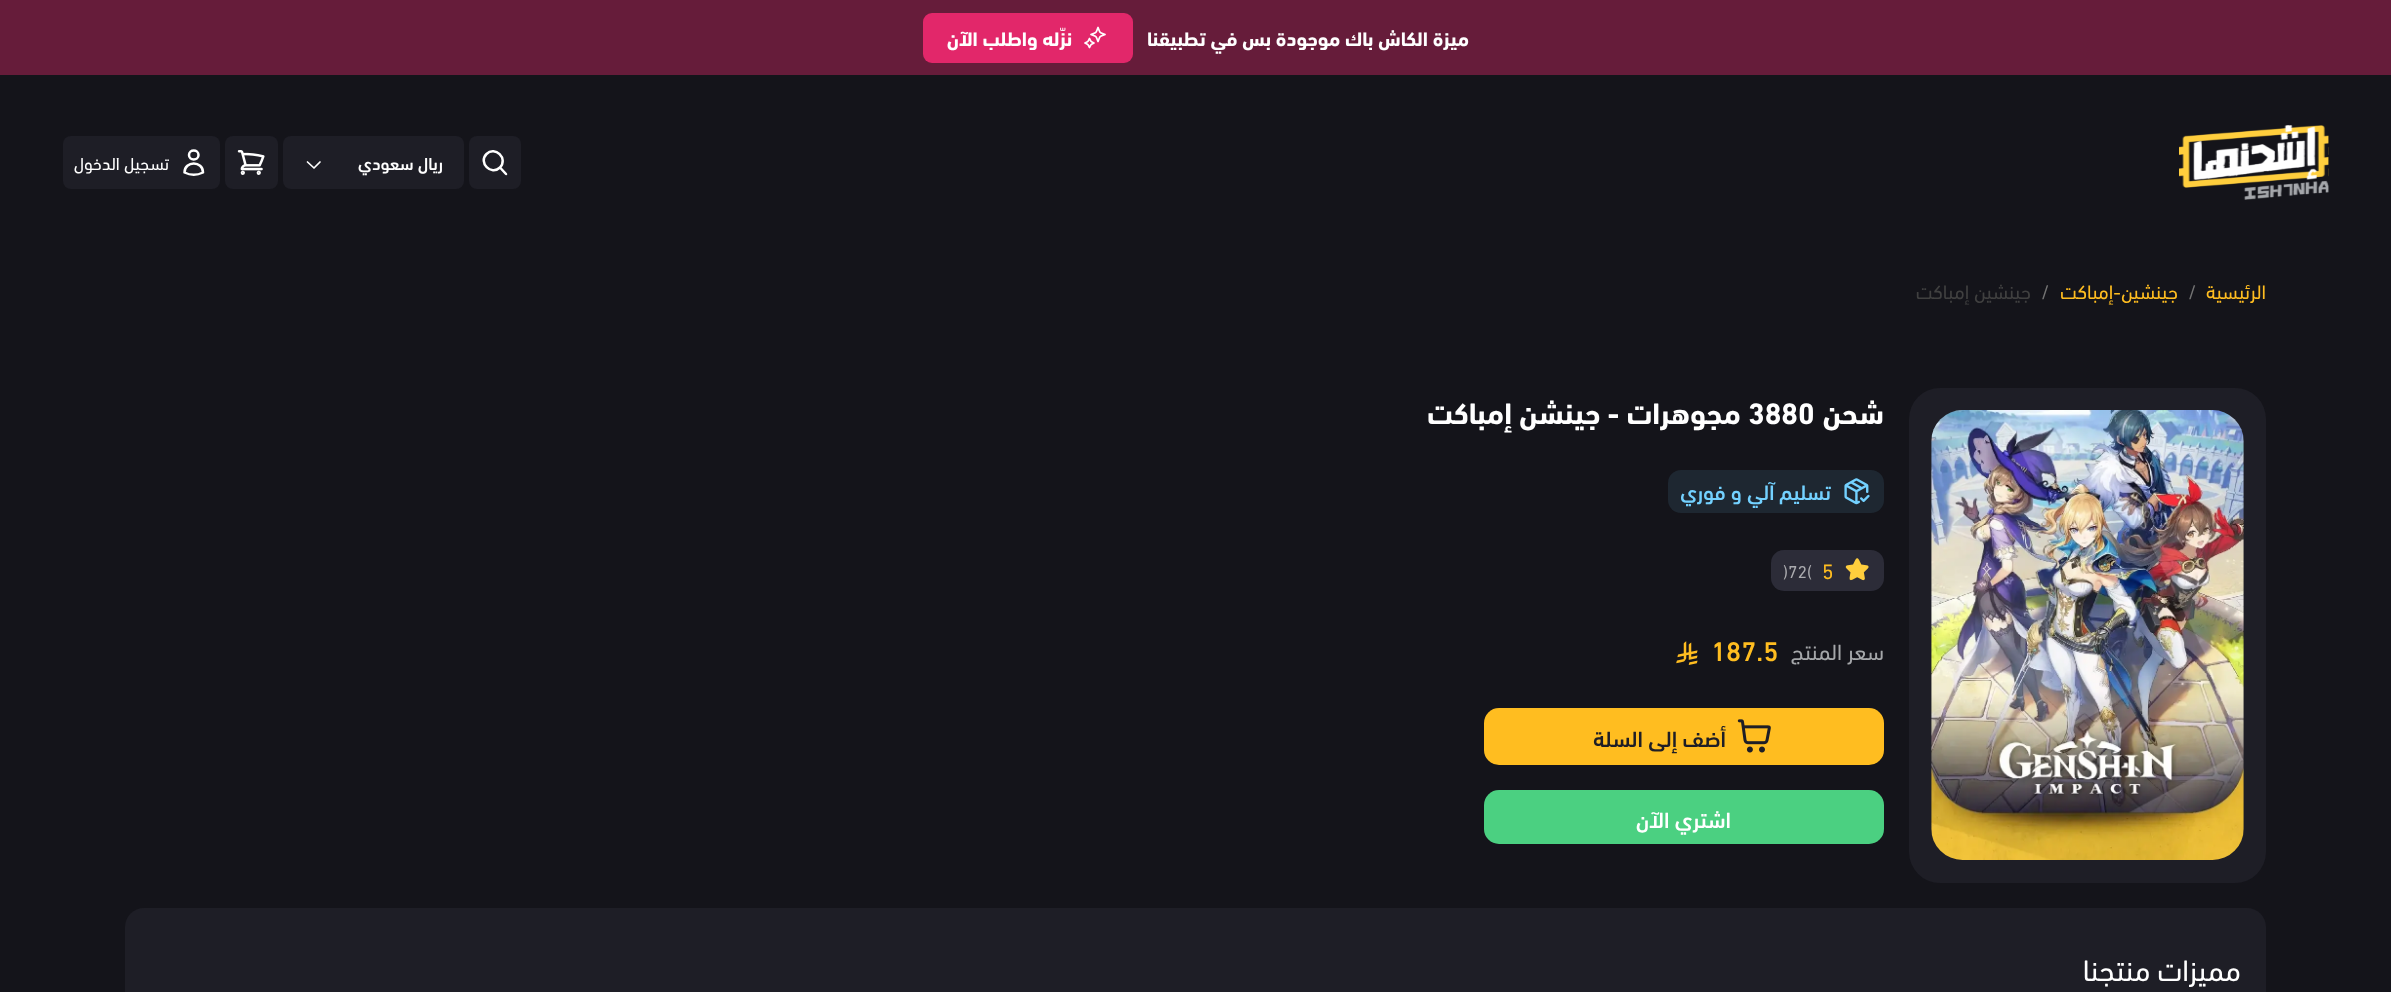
<svg xmlns="http://www.w3.org/2000/svg" width="2391" height="992" viewBox="0 0 2391 992">
  <rect width="100%" height="100%" fill="#14141a"/>
  <rect x="0" y="0" width="2391" height="75" fill="#661c3a"/>
  <text x="1469" y="46" font-family="'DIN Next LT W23'" font-size="20" font-weight="bold" direction="rtl" fill="#ffffff">ميزة الكاش باك موجودة بس في تطبيقنا</text>
  <rect x="923" y="13" width="210" height="50" rx="9" fill="#e2276a"/>
  <image x="1084" y="26" width="22" height="23" href="img1.png"/>
  <text x="1072" y="46" font-family="'DIN Next LT W23'" font-size="20" font-weight="bold" direction="rtl" fill="#ffffff">نزّله واطلب الآن</text>
  <image x="2179" y="125" width="150" height="75" href="img2.png"/>
  <rect x="469" y="136" width="52" height="53" rx="8" fill="#1e1e26"/>
  <path d="M506 174L500 167.5M500 167.5C508.5 158.5 495 145.5 486.5 154C478 162.5 491 176 500 167.5Z" fill="none" stroke="#ffffff" stroke-width="2.5" stroke-linecap="round" stroke-linejoin="round"/>
  <rect x="283" y="136" width="181" height="53" rx="8" fill="#1e1e26"/>
  <text x="443" y="170" font-family="'DIN Next LT W23'" font-size="17.5" font-weight="500" direction="rtl" fill="#ffffff">ريال سعودي</text>
  <path d="M320 162L314 168L307.5 162" fill="none" stroke="#ffffff" stroke-width="1.7" stroke-linecap="round" stroke-linejoin="round"/>
  <rect x="225" y="136" width="53" height="53" rx="8" fill="#1e1e26"/>
  <image x="237" y="150" width="28" height="25" href="img3.png"/>
  <rect x="63" y="136" width="157" height="53" rx="8" fill="#1e1e26"/>
  <path d="M198.5 155C198.5 161 189 161 189 155C189 149 198.5 149 198.5 155ZM184.5 172.5C184.5 160.5 203 160.5 203 172.5C197 175.5 190.5 175.5 184.5 172.5Z" fill="none" stroke="#ffffff" stroke-width="2.5" stroke-linecap="round" stroke-linejoin="round"/>
  <text x="169" y="170" font-family="'DIN Next LT W23'" font-size="17.5" direction="rtl" fill="#ffffff">تسجيل الدخول</text>
  <text x="2266" y="299" font-family="'DIN Next LT W23'" font-size="20" direction="rtl" fill="#ffbd20">الرئيسية</text>
  <text x="2188" y="299" font-family="'DIN Next LT W23'" font-size="20" fill="#737373">/</text>
  <text x="2178" y="299" font-family="'DIN Next LT W23'" font-size="20" direction="rtl" fill="#ffbd20">جينشين-إمباكت</text>
  <text x="2041" y="299" font-family="'DIN Next LT W23'" font-size="20" fill="#737373">/</text>
  <text x="2031" y="299" font-family="'DIN Next LT W23'" font-size="20" direction="rtl" fill="#404040">جينشين إمباكت</text>
  <rect x="1909" y="388" width="357" height="495" rx="31" fill="#1e1e26"/>
  <image x="1931" y="410" width="313" height="450" href="img4.png"/>
  <text x="1884" y="424" font-family="'DIN Next LT W23'" font-size="30" font-weight="bold" direction="rtl" fill="#ffffff">شحن</text>
  <text x="1748" y="424" font-family="'DIN Next LT W23'" font-size="30" font-weight="bold" fill="#ffffff">3880</text>
  <text x="1741" y="424" font-family="'DIN Next LT W23'" font-size="30" font-weight="bold" direction="rtl" fill="#ffffff">مجوهرات - جينشن إمباكت</text>
  <rect x="1668" y="470" width="216" height="43" rx="13" fill="#1e2731"/>
  <image x="1844" y="478" width="26" height="27" href="img5.png"/>
  <text x="1831" y="500" font-family="'DIN Next LT W23'" font-size="21.25" font-weight="500" direction="rtl" fill="#73d1ff">تسليم آلي و فوري</text>
  <rect x="1771" y="550" width="113" height="41" rx="13" fill="#2c2c38"/>
  <image x="1845" y="558" width="24" height="23" href="img6.png"/>
  <text x="1822" y="579" font-family="'DIN Next LT W23'" font-size="21.25" fill="#ffbd20">5</text>
  <text x="1783" y="578" font-family="'DIN Next LT W23'" font-size="17.5" fill="#ababaf">)72(</text>
  <text x="1884" y="660" font-family="'DIN Next LT W23'" font-size="22.5" direction="rtl" fill="#a5a7aa">سعر المنتج</text>
  <text x="1711" y="661" font-family="'DIN Next LT W23'" font-size="27.5" font-weight="500" fill="#ffbd20">187.5</text>
  <image x="1676" y="641" width="22" height="24" href="img7.png"/>
  <rect x="1484" y="708" width="400" height="57" rx="15" fill="#ffbd20"/>
  <image x="1737" y="719" width="34" height="34" href="img8.png"/>
  <text x="1726" y="747" font-family="'DIN Next LT W23'" font-size="22.5" font-weight="500" direction="rtl" fill="#1e1e26">أضف إلى السلة</text>
  <rect x="1484" y="790" width="400" height="54" rx="15" fill="#4bd081"/>
  <text x="1731" y="828" font-family="'DIN Next LT W23'" font-size="22.5" font-weight="500" direction="rtl" fill="#ffffff">اشتري الآن</text>
  <rect x="125" y="908" width="2141" height="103" rx="19" fill="#1e1e26"/>
  <text x="2241" y="981" font-family="'DIN Next LT W23'" font-size="30" direction="rtl" fill="#ffffff">مميزات منتجنا</text>
</svg>
